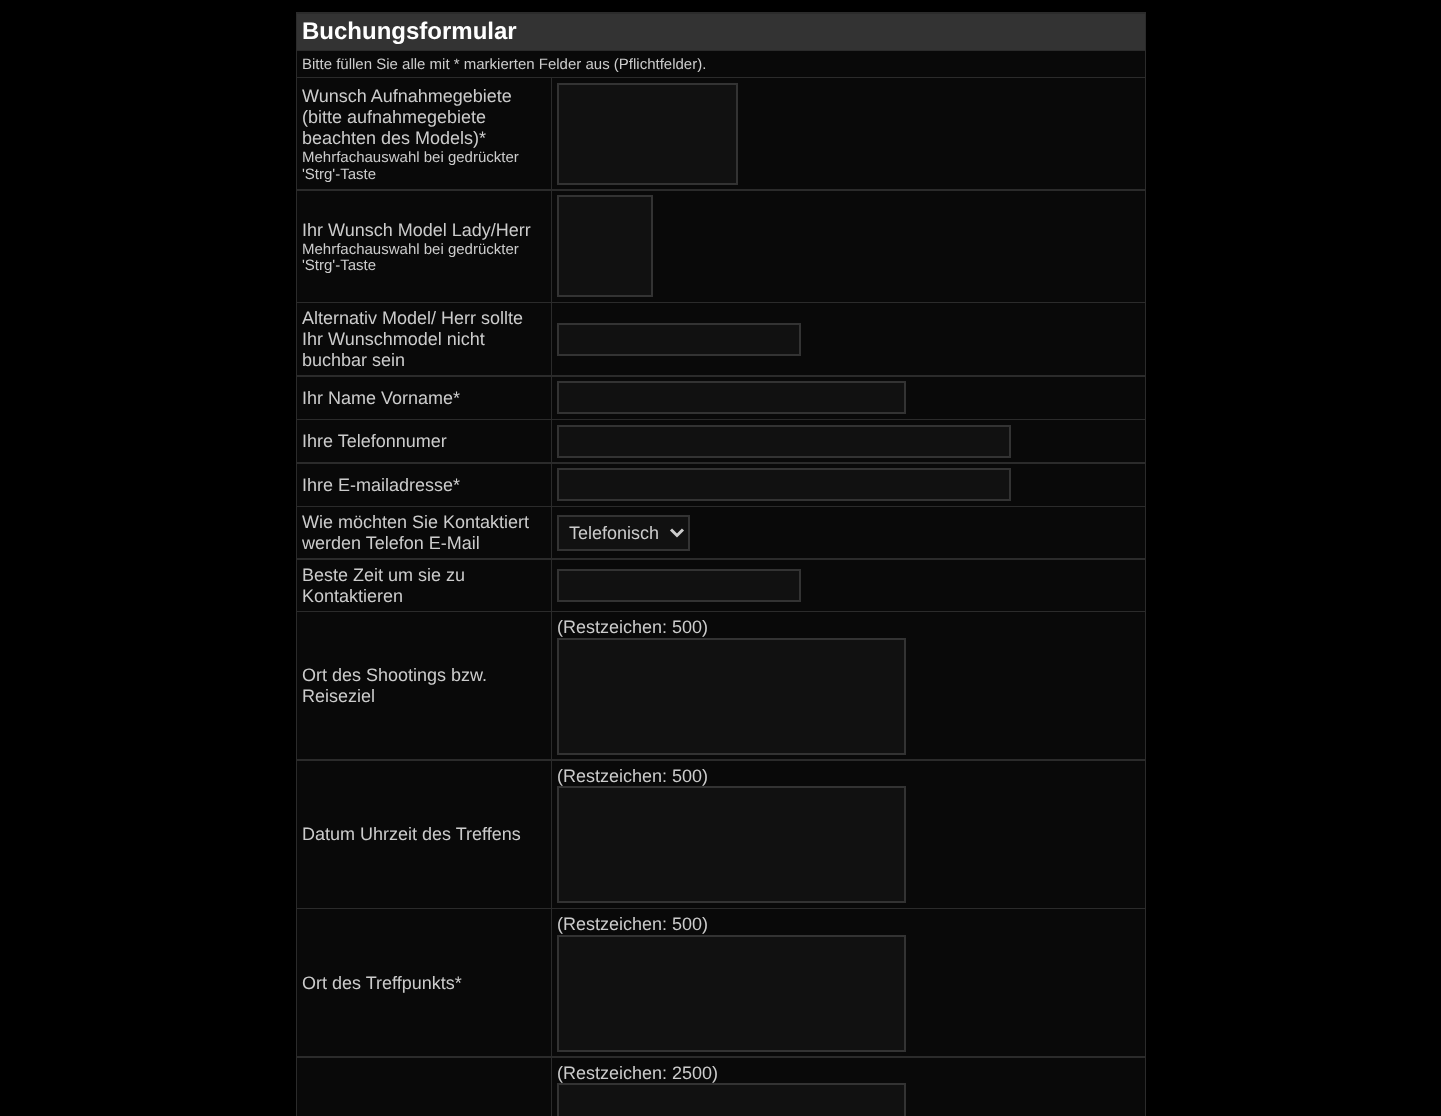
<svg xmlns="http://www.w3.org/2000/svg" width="1441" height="1116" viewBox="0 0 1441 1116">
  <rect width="100%" height="100%" fill="#000000"/>
  <rect x="296" y="12" width="850" height="1104" fill="#2b2b2b"/>
  <rect x="297" y="14" width="848" height="36" fill="#333333"/>
  <text x="302" y="39" font-family="Liberation Sans" font-size="24" font-weight="bold" fill="#ffffff">Buchungsformular</text>
  <rect x="297" y="51" width="848" height="26" fill="#090909"/>
  <text x="302" y="69" font-family="Liberation Sans" font-size="15" fill="#cccccc">Bitte füllen Sie alle mit * markierten Felder aus (Pflichtfelder).</text>
  <rect x="297" y="78" width="254" height="111" fill="#090909"/>
  <text x="302" y="102" font-family="Liberation Sans" font-size="18" fill="#cccccc">Wunsch Aufnahmegebiete</text>
  <text x="302" y="123" font-family="Liberation Sans" font-size="18" fill="#cccccc">(bitte aufnahmegebiete</text>
  <text x="302" y="144" font-family="Liberation Sans" font-size="18" fill="#cccccc">beachten des Models)*</text>
  <text x="302" y="162" font-family="Liberation Sans" font-size="15" fill="#cccccc">Mehrfachauswahl bei gedrückter</text>
  <text x="302" y="179" font-family="Liberation Sans" font-size="15" fill="#cccccc">'Strg'-Taste</text>
  <rect x="552" y="78" width="593" height="111" fill="#090909"/>
  <rect x="558" y="84" width="179" height="100" fill="#111111" stroke="#333333" stroke-width="2"/>
  <rect x="297" y="191" width="254" height="111" fill="#090909"/>
  <text x="302" y="236" font-family="Liberation Sans" font-size="18" fill="#cccccc">Ihr Wunsch Model Lady/Herr</text>
  <text x="302" y="254" font-family="Liberation Sans" font-size="15" fill="#cccccc">Mehrfachauswahl bei gedrückter</text>
  <text x="302" y="270" font-family="Liberation Sans" font-size="15" fill="#cccccc">'Strg'-Taste</text>
  <rect x="552" y="191" width="593" height="111" fill="#090909"/>
  <rect x="558" y="196" width="94" height="100" fill="#111111" stroke="#333333" stroke-width="2"/>
  <rect x="297" y="303" width="254" height="72" fill="#090909"/>
  <text x="302" y="324" font-family="Liberation Sans" font-size="18" fill="#cccccc">Alternativ Model/ Herr sollte</text>
  <text x="302" y="345" font-family="Liberation Sans" font-size="18" fill="#cccccc">Ihr Wunschmodel nicht</text>
  <text x="302" y="366" font-family="Liberation Sans" font-size="18" fill="#cccccc">buchbar sein</text>
  <rect x="552" y="303" width="593" height="72" fill="#090909"/>
  <rect x="558" y="324" width="242" height="31" fill="#111111" stroke="#333333" stroke-width="2"/>
  <rect x="297" y="377" width="254" height="42" fill="#090909"/>
  <text x="302" y="404" font-family="Liberation Sans" font-size="18" fill="#cccccc">Ihr Name Vorname*</text>
  <rect x="552" y="377" width="593" height="42" fill="#090909"/>
  <rect x="558" y="382" width="347" height="31" fill="#111111" stroke="#333333" stroke-width="2"/>
  <rect x="297" y="420" width="254" height="42" fill="#090909"/>
  <text x="302" y="447" font-family="Liberation Sans" font-size="18" fill="#cccccc">Ihre Telefonnumer</text>
  <rect x="552" y="420" width="593" height="42" fill="#090909"/>
  <rect x="558" y="426" width="452" height="31" fill="#111111" stroke="#333333" stroke-width="2"/>
  <rect x="297" y="464" width="254" height="42" fill="#090909"/>
  <text x="302" y="491" font-family="Liberation Sans" font-size="18" fill="#cccccc">Ihre E-mailadresse*</text>
  <rect x="552" y="464" width="593" height="42" fill="#090909"/>
  <rect x="558" y="469" width="452" height="31" fill="#111111" stroke="#333333" stroke-width="2"/>
  <rect x="297" y="507" width="254" height="51" fill="#090909"/>
  <text x="302" y="528" font-family="Liberation Sans" font-size="18" fill="#cccccc">Wie möchten Sie Kontaktiert</text>
  <text x="302" y="549" font-family="Liberation Sans" font-size="18" fill="#cccccc">werden Telefon E-Mail</text>
  <rect x="552" y="507" width="593" height="51" fill="#090909"/>
  <rect x="558" y="516" width="131" height="34" fill="#111111" stroke="#333333" stroke-width="2"/>
  <path d="M671 529.5L677 535.5L683 529.5" fill="none" stroke="#cccccc" stroke-width="3"/>
  <text x="569" y="539" font-family="Liberation Sans" font-size="18" fill="#cccccc">Telefonisch</text>
  <rect x="297" y="560" width="254" height="51" fill="#090909"/>
  <text x="302" y="581" font-family="Liberation Sans" font-size="18" fill="#cccccc">Beste Zeit um sie zu</text>
  <text x="302" y="602" font-family="Liberation Sans" font-size="18" fill="#cccccc">Kontaktieren</text>
  <rect x="552" y="560" width="593" height="51" fill="#090909"/>
  <rect x="558" y="570" width="242" height="31" fill="#111111" stroke="#333333" stroke-width="2"/>
  <rect x="552" y="612" width="593" height="147" fill="#090909"/>
  <text x="557" y="633" font-family="Liberation Sans" font-size="18" fill="#cccccc">(Restzeichen: 500)</text>
  <rect x="558" y="639" width="347" height="115" fill="#111111" stroke="#333333" stroke-width="2"/>
  <rect x="297" y="612" width="254" height="147" fill="#090909"/>
  <text x="302" y="681" font-family="Liberation Sans" font-size="18" fill="#cccccc">Ort des Shootings bzw.</text>
  <text x="302" y="702" font-family="Liberation Sans" font-size="18" fill="#cccccc">Reiseziel</text>
  <rect x="552" y="761" width="593" height="147" fill="#090909"/>
  <text x="557" y="782" font-family="Liberation Sans" font-size="18" fill="#cccccc">(Restzeichen: 500)</text>
  <rect x="558" y="787" width="347" height="115" fill="#111111" stroke="#333333" stroke-width="2"/>
  <rect x="297" y="761" width="254" height="147" fill="#090909"/>
  <text x="302" y="840" font-family="Liberation Sans" font-size="18" fill="#cccccc">Datum Uhrzeit des Treffens</text>
  <rect x="552" y="909" width="593" height="147" fill="#090909"/>
  <text x="557" y="930" font-family="Liberation Sans" font-size="18" fill="#cccccc">(Restzeichen: 500)</text>
  <rect x="558" y="936" width="347" height="115" fill="#111111" stroke="#333333" stroke-width="2"/>
  <rect x="297" y="909" width="254" height="147" fill="#090909"/>
  <text x="302" y="989" font-family="Liberation Sans" font-size="18" fill="#cccccc">Ort des Treffpunkts*</text>
  <rect x="297" y="1058" width="254" height="58" fill="#090909"/>
  <rect x="552" y="1058" width="593" height="58" fill="#090909"/>
  <text x="557" y="1079" font-family="Liberation Sans" font-size="18" fill="#cccccc">(Restzeichen: 2500)</text>
  <rect x="558" y="1084" width="347" height="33" fill="#111111" stroke="#333333" stroke-width="2"/>
</svg>
